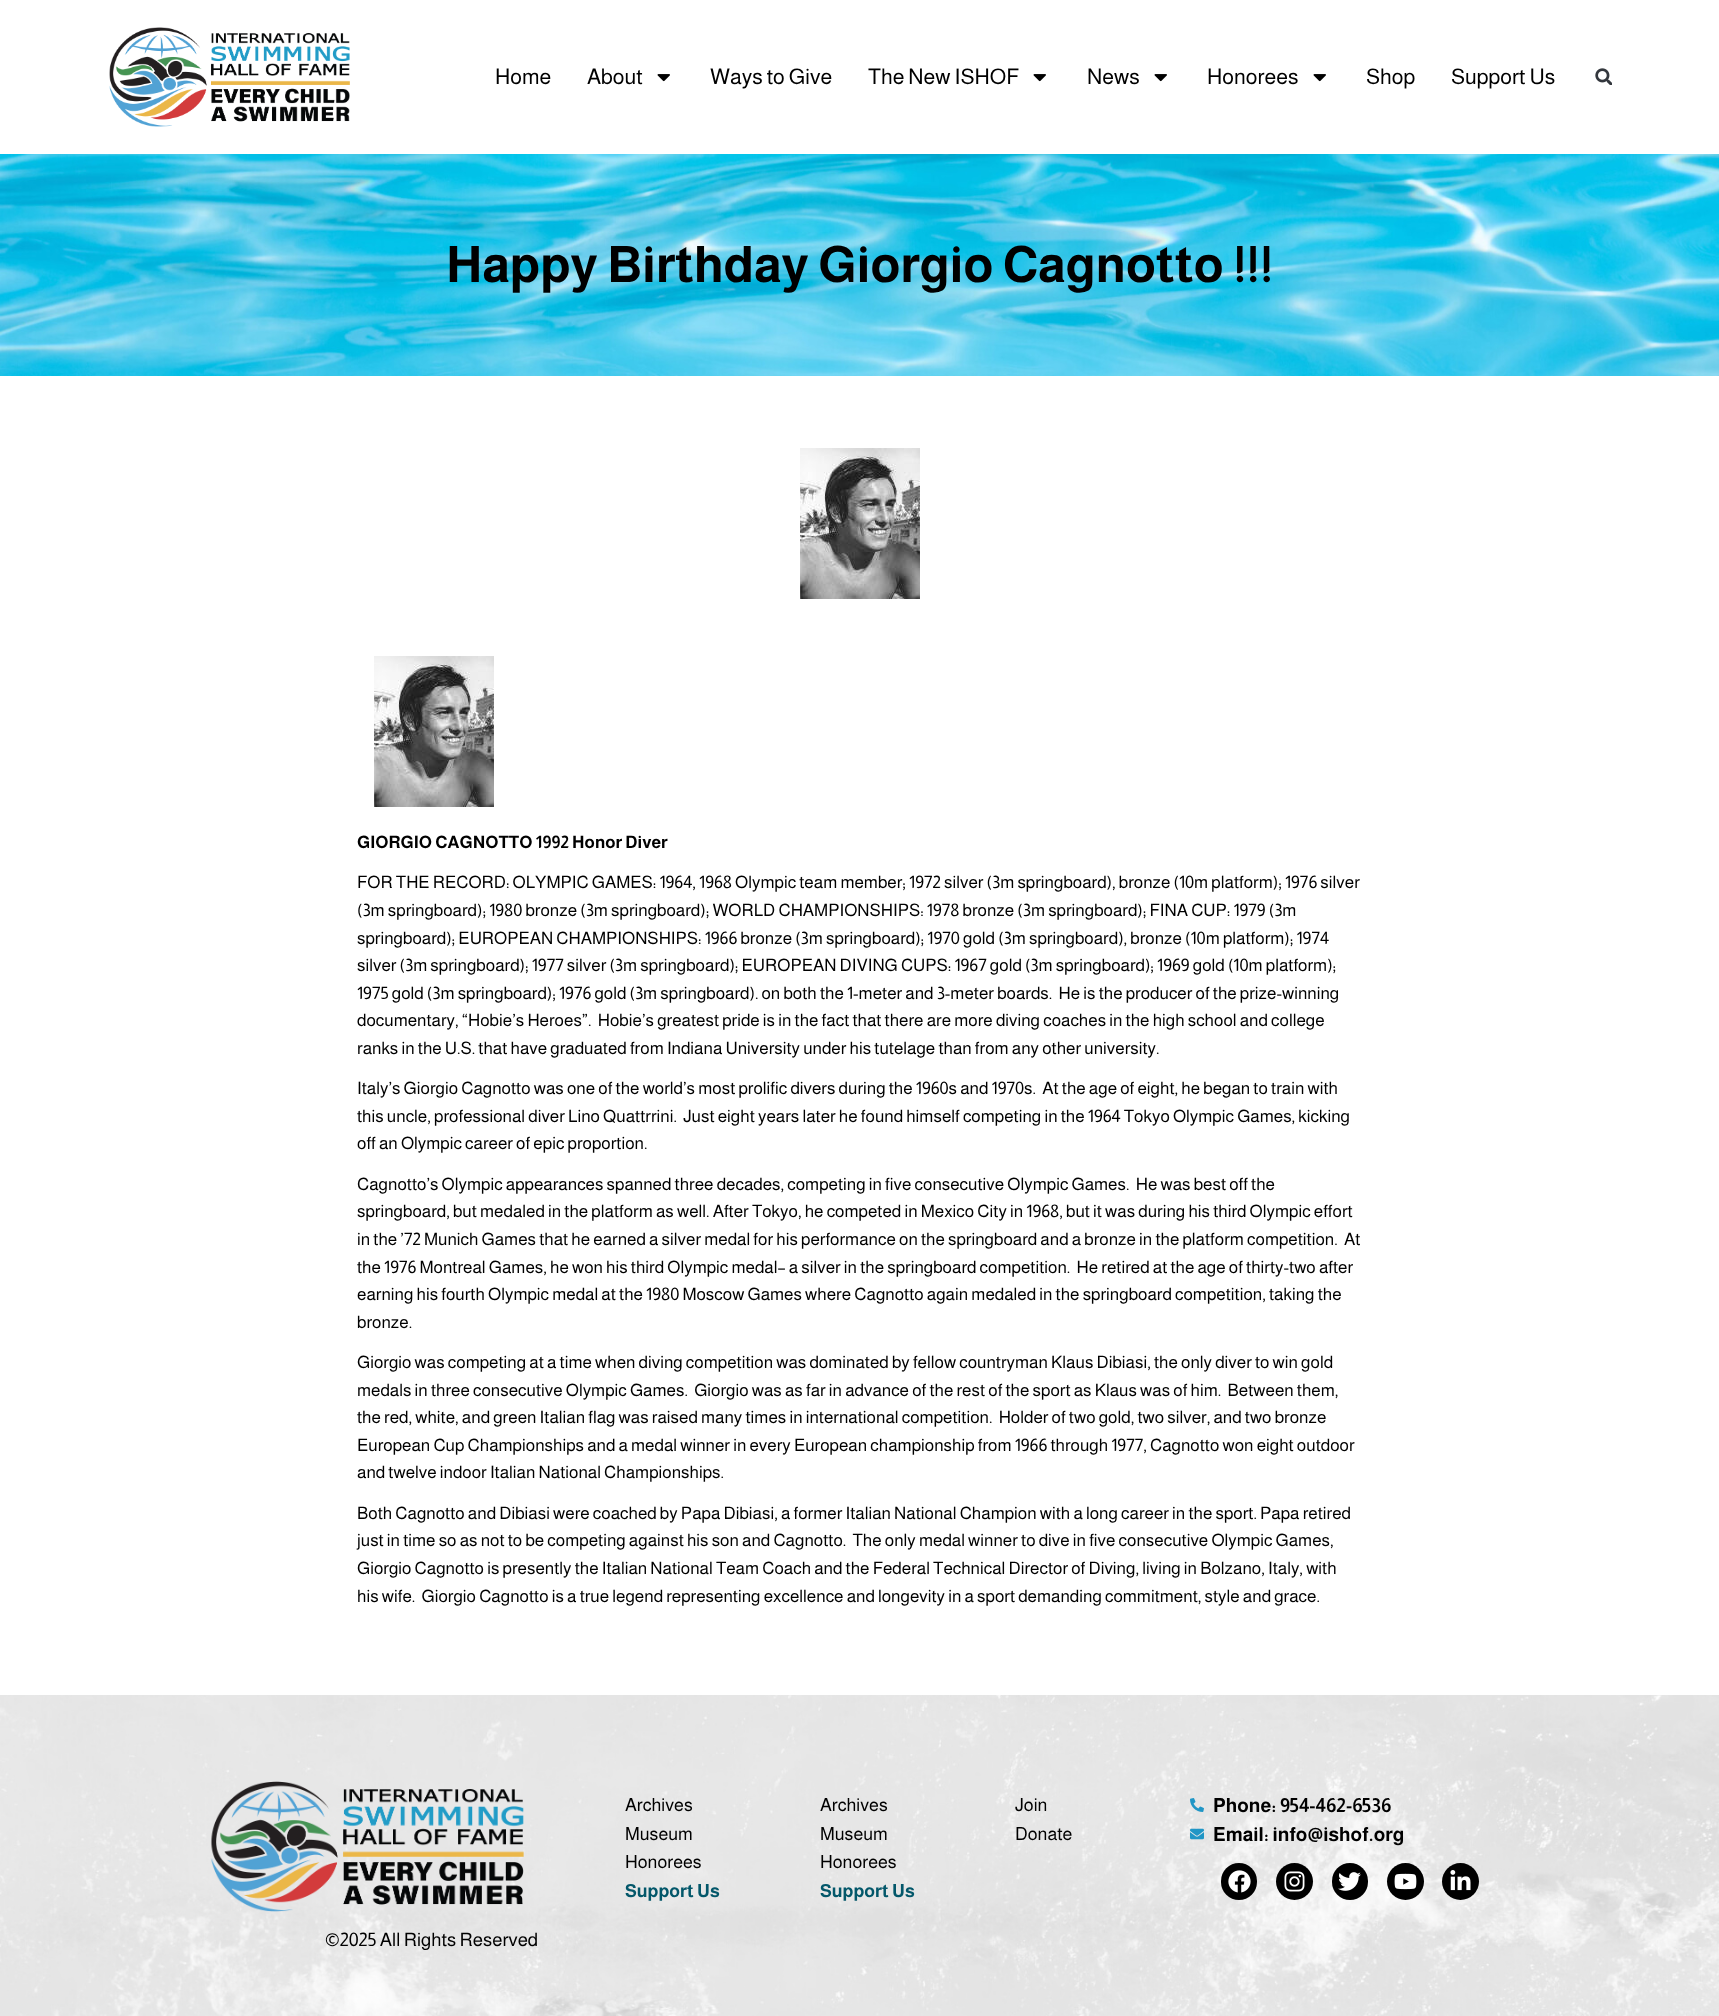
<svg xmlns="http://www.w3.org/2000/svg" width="1719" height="2016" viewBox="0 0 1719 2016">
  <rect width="100%" height="100%" fill="#ffffff"/>
  <image x="109" y="27" width="241" height="100" href="img1.png"/>
  <text x="495" y="84" font-family="Almarai" font-size="21.5" fill="#000000">Home</text>
  <text x="587" y="84" font-family="Almarai" font-size="21.5" fill="#000000">About</text>
  <image x="657" y="74" width="13" height="8" href="img2.png"/>
  <text x="710" y="84" font-family="Almarai" font-size="21.5" fill="#000000">Ways to Give</text>
  <text x="868" y="84" font-family="Almarai" font-size="21.5" fill="#000000">The New ISHOF</text>
  <image x="1033" y="74" width="13" height="8" href="img2.png"/>
  <text x="1087" y="84" font-family="Almarai" font-size="21.5" fill="#000000">News</text>
  <image x="1154" y="74" width="13" height="8" href="img2.png"/>
  <text x="1207" y="84" font-family="Almarai" font-size="21.5" fill="#000000">Honorees</text>
  <image x="1313" y="74" width="13" height="8" href="img2.png"/>
  <text x="1366" y="84" font-family="Almarai" font-size="21.5" fill="#000000">Shop</text>
  <text x="1451" y="84" font-family="Almarai" font-size="21.5" fill="#000000">Support Us</text>
  <image x="1595" y="68" width="17" height="17" href="img3.png"/>
  <image x="0" y="154" width="1719" height="222" href="img4.png"/>
  <text x="446" y="282" font-family="Almarai" font-size="50.25" font-weight="bold" fill="#000000">Happy Birthday Giorgio Cagnotto !!!</text>
  <image x="800" y="448" width="120" height="151" href="img5.png"/>
  <image x="374" y="656" width="120" height="151" href="img5.png"/>
  <text x="357" y="848" font-family="Almarai" font-size="17.22" font-weight="bold" fill="#000000">GIORGIO CAGNOTTO 1992 Honor Diver</text>
  <text x="357" y="888" font-family="Almarai" font-size="17.22" fill="#000000">FOR THE RECORD: OLYMPIC GAMES: 1964, 1968 Olympic team member; 1972 silver (3m springboard), bronze (10m platform); 1976 silver</text>
  <text x="357" y="916" font-family="Almarai" font-size="17.22" fill="#000000">(3m springboard); 1980 bronze (3m springboard); WORLD CHAMPIONSHIPS: 1978 bronze (3m springboard); FINA CUP: 1979 (3m</text>
  <text x="357" y="944" font-family="Almarai" font-size="17.22" fill="#000000">springboard); EUROPEAN CHAMPIONSHIPS: 1966 bronze (3m springboard); 1970 gold (3m springboard), bronze (10m platform); 1974</text>
  <text x="357" y="971" font-family="Almarai" font-size="17.22" fill="#000000">silver (3m springboard); 1977 silver (3m springboard); EUROPEAN DIVING CUPS: 1967 gold (3m springboard); 1969 gold (10m platform);</text>
  <text x="357" y="999" font-family="Almarai" font-size="17.22" fill="#000000" xml:space="preserve">1975 gold (3m springboard); 1976 gold (3m springboard). on both the 1-meter and 3-meter boards.  He is the producer of the prize-winning</text>
  <text x="357" y="1026" font-family="Almarai" font-size="17.22" fill="#000000" xml:space="preserve">documentary, “Hobie’s Heroes”.  Hobie’s greatest pride is in the fact that there are more diving coaches in the high school and college</text>
  <text x="357" y="1054" font-family="Almarai" font-size="17.22" fill="#000000">ranks in the U.S. that have graduated from Indiana University under his tutelage than from any other university.</text>
  <text x="357" y="1094" font-family="Almarai" font-size="17.22" fill="#000000" xml:space="preserve">Italy’s Giorgio Cagnotto was one of the world’s most prolific divers during the 1960s and 1970s.  At the age of eight, he began to train with</text>
  <text x="357" y="1122" font-family="Almarai" font-size="17.22" fill="#000000" xml:space="preserve">this uncle, professional diver Lino Quattrrini.  Just eight years later he found himself competing in the 1964 Tokyo Olympic Games, kicking</text>
  <text x="357" y="1149" font-family="Almarai" font-size="17.22" fill="#000000">off an Olympic career of epic proportion.</text>
  <text x="357" y="1190" font-family="Almarai" font-size="17.22" fill="#000000" xml:space="preserve">Cagnotto’s Olympic appearances spanned three decades, competing in five consecutive Olympic Games.  He was best off the</text>
  <text x="357" y="1217" font-family="Almarai" font-size="17.22" fill="#000000">springboard, but medaled in the platform as well. After Tokyo, he competed in Mexico City in 1968, but it was during his third Olympic effort</text>
  <text x="357" y="1245" font-family="Almarai" font-size="17.22" fill="#000000" xml:space="preserve">in the ’72 Munich Games that he earned a silver medal for his performance on the springboard and a bronze in the platform competition.  At</text>
  <text x="357" y="1273" font-family="Almarai" font-size="17.22" fill="#000000" xml:space="preserve">the 1976 Montreal Games, he won his third Olympic medal– a silver in the springboard competition.  He retired at the age of thirty-two after</text>
  <text x="357" y="1300" font-family="Almarai" font-size="17.22" fill="#000000">earning his fourth Olympic medal at the 1980 Moscow Games where Cagnotto again medaled in the springboard competition, taking the</text>
  <text x="357" y="1328" font-family="Almarai" font-size="17.22" fill="#000000">bronze.</text>
  <text x="357" y="1368" font-family="Almarai" font-size="17.22" fill="#000000">Giorgio was competing at a time when diving competition was dominated by fellow countryman Klaus Dibiasi, the only diver to win gold</text>
  <text x="357" y="1396" font-family="Almarai" font-size="17.22" fill="#000000" xml:space="preserve">medals in three consecutive Olympic Games.  Giorgio was as far in advance of the rest of the sport as Klaus was of him.  Between them,</text>
  <text x="357" y="1423" font-family="Almarai" font-size="17.22" fill="#000000" xml:space="preserve">the red, white, and green Italian flag was raised many times in international competition.  Holder of two gold, two silver, and two bronze</text>
  <text x="357" y="1451" font-family="Almarai" font-size="17.22" fill="#000000">European Cup Championships and a medal winner in every European championship from 1966 through 1977, Cagnotto won eight outdoor</text>
  <text x="357" y="1478" font-family="Almarai" font-size="17.22" fill="#000000">and twelve indoor Italian National Championships.</text>
  <text x="357" y="1519" font-family="Almarai" font-size="17.22" fill="#000000">Both Cagnotto and Dibiasi were coached by Papa Dibiasi, a former Italian National Champion with a long career in the sport. Papa retired</text>
  <text x="357" y="1546" font-family="Almarai" font-size="17.22" fill="#000000" xml:space="preserve">just in time so as not to be competing against his son and Cagnotto.  The only medal winner to dive in five consecutive Olympic Games,</text>
  <text x="357" y="1574" font-family="Almarai" font-size="17.22" fill="#000000">Giorgio Cagnotto is presently the Italian National Team Coach and the Federal Technical Director of Diving, living in Bolzano, Italy, with</text>
  <text x="357" y="1602" font-family="Almarai" font-size="17.22" fill="#000000" xml:space="preserve">his wife.  Giorgio Cagnotto is a true legend representing excellence and longevity in a sport demanding commitment, style and grace.</text>
  <image x="0" y="1695" width="1719" height="321" href="img6.png"/>
  <text x="625" y="1811" font-family="Almarai" font-size="18" fill="#000000">Archives</text>
  <text x="625" y="1840" font-family="Almarai" font-size="18" fill="#000000">Museum</text>
  <text x="625" y="1868" font-family="Almarai" font-size="18" fill="#000000">Honorees</text>
  <text x="625" y="1897" font-family="Almarai" font-size="18" font-weight="bold" fill="#03576a">Support Us</text>
  <text x="820" y="1811" font-family="Almarai" font-size="18" fill="#000000">Archives</text>
  <text x="820" y="1840" font-family="Almarai" font-size="18" fill="#000000">Museum</text>
  <text x="820" y="1868" font-family="Almarai" font-size="18" fill="#000000">Honorees</text>
  <text x="820" y="1897" font-family="Almarai" font-size="18" font-weight="bold" fill="#03576a">Support Us</text>
  <text x="1015" y="1811" font-family="Almarai" font-size="18" fill="#000000">Join</text>
  <text x="1015" y="1840" font-family="Almarai" font-size="18" fill="#000000">Donate</text>
  <image x="1190" y="1798" width="14" height="14" href="img7.png"/>
  <text x="1213" y="1812" font-family="Almarai" font-size="19.4" font-weight="bold" fill="#000000">Phone: 954-462-6536</text>
  <image x="1190" y="1828" width="14" height="12" href="img8.png"/>
  <text x="1213" y="1841" font-family="Almarai" font-size="19.4" font-weight="bold" fill="#000000">Email: info@ishof.org</text>
  <rect x="1221" y="1863" width="36" height="37" rx="18" fill="#000000"/>
  <image x="1228" y="1870" width="23" height="23" href="img9.png"/>
  <circle cx="1294.5" cy="1881.5" r="18.5" fill="#000000"/>
  <image x="1284" y="1871" width="21" height="21" href="img10.png"/>
  <rect x="1332" y="1863" width="36" height="37" rx="18" fill="#000000"/>
  <image x="1338" y="1872" width="23" height="19" href="img11.png"/>
  <circle cx="1405.5" cy="1881.5" r="18.5" fill="#000000"/>
  <image x="1394" y="1873" width="23" height="17" href="img12.png"/>
  <circle cx="1460.5" cy="1881.5" r="18.5" fill="#000000"/>
  <image x="1450" y="1870" width="21" height="21" href="img13.png"/>
  <image x="210" y="1781" width="314" height="131" href="img14.png"/>
  <text x="325" y="1946" font-family="Almarai" font-size="18.7" fill="#000000">©2025 All Rights Reserved</text>
</svg>
